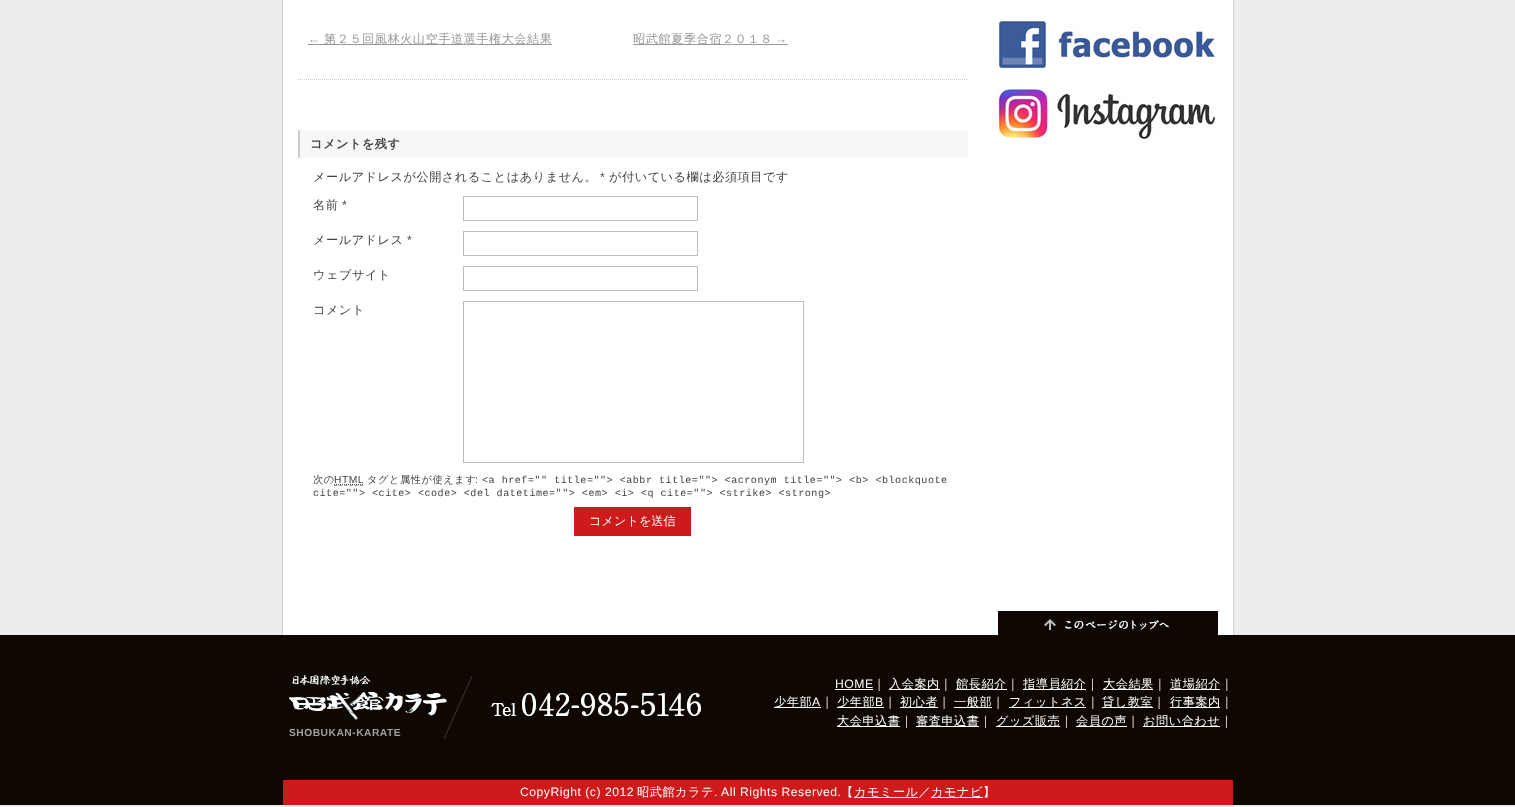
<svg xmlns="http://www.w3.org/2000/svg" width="1515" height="807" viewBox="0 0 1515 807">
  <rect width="100%" height="100%" fill="#ededed"/>
  <image x="281" y="0" width="954" height="635" href="img1.png"/>
  <path d="M298 79.5H968" fill="none" stroke="#cccccc" stroke-dasharray="1 1"/>
  <text x="308" y="43" font-family="Liberation Sans" font-size="12.2" letter-spacing="0.5" fill="#999999">←</text>
  <rect x="308" y="44" width="244" height="1" fill="#999999"/>
  <text x="324" y="43" font-family="WenQuanYi Zen Hei" font-size="12.2" font-weight="500" letter-spacing="0.5" fill="#999999">第２５回風林火山空手道選手権大会結果</text>
  <rect x="633" y="44" width="155" height="1" fill="#999999"/>
  <text x="633" y="43" font-family="WenQuanYi Zen Hei" font-size="12.2" font-weight="500" letter-spacing="0.5" fill="#999999">昭武館夏季合宿２０１８</text>
  <text x="775" y="43" font-family="Liberation Sans" font-size="12.2" letter-spacing="0.5" fill="#999999">→</text>
  <rect x="300" y="130" width="668" height="28" fill="#f7f7f7"/>
  <rect x="298" y="130" width="2" height="28" fill="#cccccc"/>
  <text x="310" y="148" font-family="WenQuanYi Zen Hei" font-size="12.2" font-weight="bold" letter-spacing="0.5" fill="#444444">コメントを残す</text>
  <text x="313" y="181" font-family="WenQuanYi Zen Hei" font-size="12.2" font-weight="500" letter-spacing="0.5" fill="#444444">メールアドレスが公開されることはありません。</text>
  <text x="600" y="181" font-family="Liberation Sans" font-size="12.2" letter-spacing="0.5" fill="#444444">*</text>
  <text x="609" y="181" font-family="WenQuanYi Zen Hei" font-size="12.2" font-weight="500" letter-spacing="0.5" fill="#444444">が付いている欄は必須項目です</text>
  <text x="313" y="209" font-family="WenQuanYi Zen Hei" font-size="12.2" font-weight="500" letter-spacing="0.5" fill="#444444">名前</text>
  <text x="342" y="209" font-family="Liberation Sans" font-size="12.2" letter-spacing="0.5" fill="#444444">*</text>
  <rect x="463.5" y="196.5" width="234" height="24" fill="none" stroke="#bebebe"/>
  <text x="313" y="244" font-family="WenQuanYi Zen Hei" font-size="12.2" font-weight="500" letter-spacing="0.5" fill="#444444">メールアドレス</text>
  <text x="407" y="244" font-family="Liberation Sans" font-size="12.2" letter-spacing="0.5" fill="#444444">*</text>
  <rect x="463.5" y="231.5" width="234" height="24" fill="none" stroke="#bebebe"/>
  <text x="313" y="279" font-family="WenQuanYi Zen Hei" font-size="12.2" font-weight="500" letter-spacing="0.5" fill="#444444">ウェブサイト</text>
  <rect x="463.5" y="266.5" width="234" height="24" fill="none" stroke="#bebebe"/>
  <text x="313" y="314" font-family="WenQuanYi Zen Hei" font-size="12.2" font-weight="500" letter-spacing="0.5" fill="#444444">コメント</text>
  <rect x="463.5" y="301.5" width="340" height="161" fill="none" stroke="#bebebe"/>
  <text x="313" y="483" font-family="WenQuanYi Zen Hei" font-size="10.25" font-weight="500" letter-spacing="0.5" fill="#444444">次の</text>
  <text x="334" y="483" font-family="Liberation Sans" font-size="10.25" letter-spacing="0.5" fill="#444444">HTML</text>
  <path d="M334 485.5H363" fill="none" stroke="#999999" stroke-dasharray="3 2.2"/>
  <path d="M334 484.5H363.5" fill="none" stroke="#444444" stroke-dasharray="1 1"/>
  <text x="367" y="483" font-family="WenQuanYi Zen Hei" font-size="10.25" font-weight="500" letter-spacing="0.5" fill="#444444">タグと属性が使えます</text>
  <text x="475" y="483" font-family="Liberation Sans" font-size="10.25" letter-spacing="0.5" fill="#444444">:</text>
  <text x="482" y="483" font-family="Liberation Mono" font-size="10.1" letter-spacing="0.5" fill="#444444">&lt;a href="" title=""&gt; &lt;abbr title=""&gt; &lt;acronym title=""&gt; &lt;b&gt; &lt;blockquote</text>
  <text x="313" y="496" font-family="Liberation Mono" font-size="10.1" letter-spacing="0.5" fill="#444444">cite=""&gt; &lt;cite&gt; &lt;code&gt; &lt;del datetime=""&gt; &lt;em&gt; &lt;i&gt; &lt;q cite=""&gt; &lt;strike&gt; &lt;strong&gt;</text>
  <rect x="574" y="507" width="117" height="29" fill="#ce1a1a"/>
  <text x="589" y="525" font-family="WenQuanYi Zen Hei" font-size="12.2" font-weight="500" fill="#ffffff">コメントを送信</text>
  <image x="998" y="18" width="218" height="52" href="img2.png"/>
  <image x="998" y="88" width="218" height="52" href="img3.png"/>
  <image x="998" y="611" width="220" height="24" href="img4.png"/>
  <rect x="0" y="635" width="1515" height="170" fill="#0f0702"/>
  <text x="835" y="688" font-family="Liberation Sans" font-size="12.2" letter-spacing="0.5" fill="#ffffff">HOME</text>
  <rect x="835" y="689" width="38" height="1" fill="#ffffff"/>
  <text x="873" y="688" font-family="WenQuanYi Zen Hei" font-size="12.2" font-weight="500" letter-spacing="0.5" fill="#ffffff">｜</text>
  <rect x="889" y="689" width="51" height="1" fill="#ffffff"/>
  <text x="889" y="688" font-family="WenQuanYi Zen Hei" font-size="12.2" font-weight="500" letter-spacing="0.5" fill="#ffffff">入会案内｜</text>
  <rect x="956" y="689" width="51" height="1" fill="#ffffff"/>
  <text x="956" y="688" font-family="WenQuanYi Zen Hei" font-size="12.2" font-weight="500" letter-spacing="0.5" fill="#ffffff">館長紹介｜</text>
  <rect x="1023" y="689" width="63" height="1" fill="#ffffff"/>
  <text x="1023" y="688" font-family="WenQuanYi Zen Hei" font-size="12.2" font-weight="500" letter-spacing="0.5" fill="#ffffff">指導員紹介｜</text>
  <rect x="1103" y="689" width="50" height="1" fill="#ffffff"/>
  <text x="1103" y="688" font-family="WenQuanYi Zen Hei" font-size="12.2" font-weight="500" letter-spacing="0.5" fill="#ffffff">大会結果｜</text>
  <rect x="1170" y="689" width="50" height="1" fill="#ffffff"/>
  <text x="1170" y="688" font-family="WenQuanYi Zen Hei" font-size="12.2" font-weight="500" letter-spacing="0.5" fill="#ffffff">道場紹介｜</text>
  <rect x="774" y="707" width="47" height="1" fill="#ffffff"/>
  <text x="774" y="706" font-family="WenQuanYi Zen Hei" font-size="12.2" font-weight="500" letter-spacing="0.5" fill="#ffffff">少年部</text>
  <text x="812" y="706" font-family="Liberation Sans" font-size="12.2" letter-spacing="0.5" fill="#ffffff">A</text>
  <text x="821" y="706" font-family="WenQuanYi Zen Hei" font-size="12.2" font-weight="500" letter-spacing="0.5" fill="#ffffff">｜</text>
  <rect x="837" y="707" width="47" height="1" fill="#ffffff"/>
  <text x="837" y="706" font-family="WenQuanYi Zen Hei" font-size="12.2" font-weight="500" letter-spacing="0.5" fill="#ffffff">少年部</text>
  <text x="875" y="706" font-family="Liberation Sans" font-size="12.2" letter-spacing="0.5" fill="#ffffff">B</text>
  <text x="884" y="706" font-family="WenQuanYi Zen Hei" font-size="12.2" font-weight="500" letter-spacing="0.5" fill="#ffffff">｜</text>
  <rect x="900" y="707" width="38" height="1" fill="#ffffff"/>
  <text x="900" y="706" font-family="WenQuanYi Zen Hei" font-size="12.2" font-weight="500" letter-spacing="0.5" fill="#ffffff">初心者｜</text>
  <rect x="954" y="707" width="38" height="1" fill="#ffffff"/>
  <text x="954" y="706" font-family="WenQuanYi Zen Hei" font-size="12.2" font-weight="500" letter-spacing="0.5" fill="#ffffff">一般部｜</text>
  <rect x="1009" y="707" width="77" height="1" fill="#ffffff"/>
  <text x="1009" y="706" font-family="WenQuanYi Zen Hei" font-size="12.2" font-weight="500" letter-spacing="0.5" fill="#ffffff">フィットネス｜</text>
  <rect x="1102" y="707" width="51" height="1" fill="#ffffff"/>
  <text x="1102" y="706" font-family="WenQuanYi Zen Hei" font-size="12.2" font-weight="500" letter-spacing="0.5" fill="#ffffff">貸し教室｜</text>
  <rect x="1170" y="707" width="50" height="1" fill="#ffffff"/>
  <text x="1170" y="706" font-family="WenQuanYi Zen Hei" font-size="12.2" font-weight="500" letter-spacing="0.5" fill="#ffffff">行事案内｜</text>
  <rect x="837" y="726" width="63" height="1" fill="#ffffff"/>
  <text x="837" y="725" font-family="WenQuanYi Zen Hei" font-size="12.2" font-weight="500" letter-spacing="0.5" fill="#ffffff">大会申込書｜</text>
  <rect x="916" y="726" width="63" height="1" fill="#ffffff"/>
  <text x="916" y="725" font-family="WenQuanYi Zen Hei" font-size="12.2" font-weight="500" letter-spacing="0.5" fill="#ffffff">審査申込書｜</text>
  <rect x="996" y="726" width="64" height="1" fill="#ffffff"/>
  <text x="996" y="725" font-family="WenQuanYi Zen Hei" font-size="12.2" font-weight="500" letter-spacing="0.5" fill="#ffffff">グッズ販売｜</text>
  <rect x="1076" y="726" width="51" height="1" fill="#ffffff"/>
  <text x="1076" y="725" font-family="WenQuanYi Zen Hei" font-size="12.2" font-weight="500" letter-spacing="0.5" fill="#ffffff">会員の声｜</text>
  <rect x="1143" y="726" width="77" height="1" fill="#ffffff"/>
  <text x="1143" y="725" font-family="WenQuanYi Zen Hei" font-size="12.2" font-weight="500" letter-spacing="0.5" fill="#ffffff">お問い合わせ｜</text>
  <image x="443" y="676" width="30" height="63" href="img5.png"/>
  <image x="491" y="693" width="210" height="23" href="img6.png"/>
  <image x="289" y="675" width="158" height="45" href="img7.png"/>
  <text x="289" y="736" font-family="Liberation Sans" font-size="10.25" font-weight="bold" letter-spacing="0.5" fill="#a0a0a0">SHOBUKAN-KARATE</text>
  <rect x="283" y="780" width="950" height="25" fill="#ce1a1a"/>
  <text x="520" y="796" font-family="Liberation Sans" font-size="12.2" letter-spacing="0.5" fill="#ffffff">CopyRight (c) 2012</text>
  <text x="637" y="796" font-family="WenQuanYi Zen Hei" font-size="12.2" font-weight="500" letter-spacing="0.5" fill="#ffffff">昭武館カラテ</text>
  <text x="714" y="796" font-family="Liberation Sans" font-size="12.2" letter-spacing="0.5" fill="#ffffff">. All Rights Reserved.</text>
  <text x="841" y="796" font-family="WenQuanYi Zen Hei" font-size="12.2" font-weight="500" letter-spacing="0.5" fill="#ffffff">【</text>
  <rect x="854" y="797" width="64" height="1" fill="#ffffff"/>
  <text x="854" y="796" font-family="WenQuanYi Zen Hei" font-size="12.2" font-weight="500" letter-spacing="0.5" fill="#ffffff">カモミール／</text>
  <rect x="931" y="797" width="52" height="1" fill="#ffffff"/>
  <text x="931" y="796" font-family="WenQuanYi Zen Hei" font-size="12.2" font-weight="500" letter-spacing="0.5" fill="#ffffff">カモナビ】</text>
</svg>
